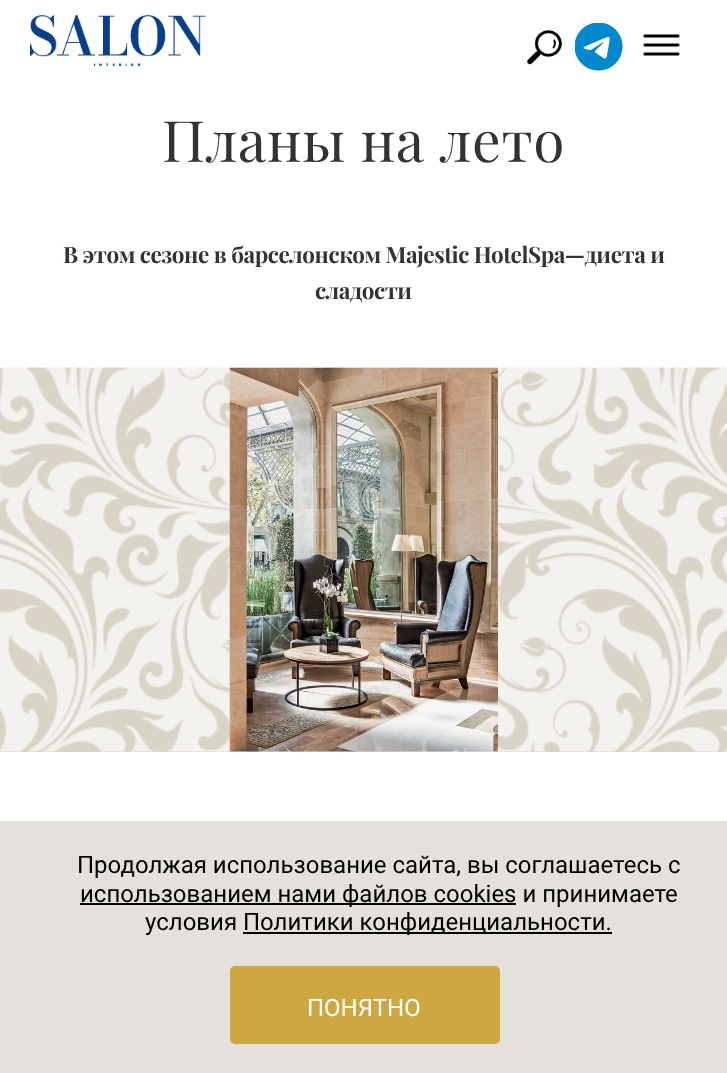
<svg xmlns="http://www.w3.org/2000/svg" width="727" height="1073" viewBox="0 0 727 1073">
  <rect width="100%" height="100%" fill="#ffffff"/>
  <image x="30" y="15" width="176" height="51" href="img1.png"/>
  <image x="575" y="23" width="48" height="48" href="img2.png"/>
  <image x="643" y="34" width="37" height="22" href="img3.png"/>
  <image x="527" y="30" width="35" height="35" href="img4.png"/>
  <text x="162" y="162" font-family="Playfair Display" font-size="57" letter-spacing="0.5" fill="#333333">Планы на лето</text>
  <text x="63" y="263" font-family="Playfair Display" font-size="22.5" font-weight="bold" letter-spacing="-0.45" fill="#333333">В этом сезоне в барселонском Majestic HotelSpa—диета и</text>
  <text x="315" y="299" font-family="Playfair Display" font-size="22.5" font-weight="bold" letter-spacing="-0.45" fill="#333333">сладости</text>
  <rect x="0" y="751" width="727" height="1" fill="#dcd6c7"/>
  <image x="0" y="367" width="727" height="385" href="img5.png"/>
  <image x="229" y="367" width="269" height="385" href="img6.png"/>
  <rect x="0" y="821" width="727" height="252" fill="#e4e0dc"/>
  <text x="77" y="873" font-family="Roboto" font-size="24" fill="#000000">Продолжая использование сайта, вы соглашаетесь c</text>
  <rect x="80" y="903" width="436" height="2" fill="#000000"/>
  <text x="80" y="902" font-family="Roboto" font-size="24" fill="#000000">использованием нами файлов cookies и принимаете</text>
  <text x="145" y="930" font-family="Roboto" font-size="24" fill="#000000">условия</text>
  <rect x="243" y="932" width="369" height="2" fill="#000000"/>
  <text x="243" y="930" font-family="Roboto" font-size="24" fill="#000000">Политики конфиденциальности.</text>
  <rect x="230" y="966" width="270" height="78" rx="5" fill="#cea740"/>
  <text x="307" y="1016" font-family="Roboto" font-size="24" fill="#ffffff">ПОНЯТНО</text>
</svg>
